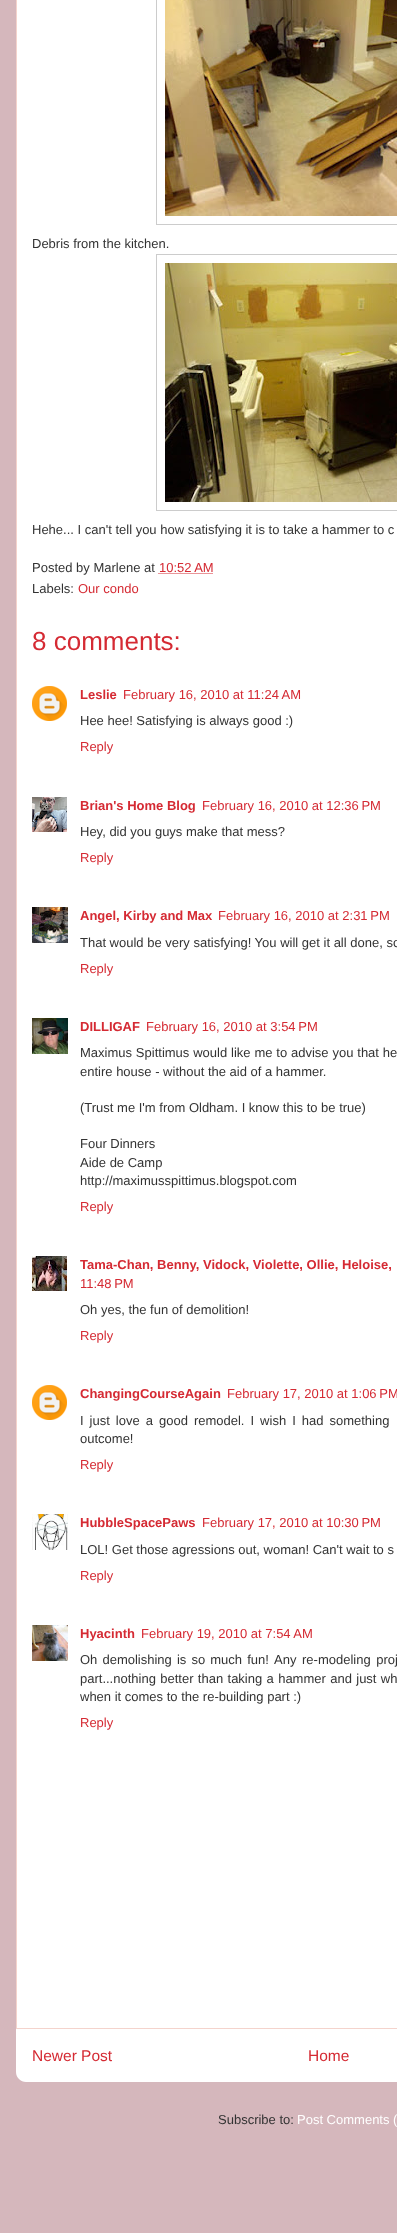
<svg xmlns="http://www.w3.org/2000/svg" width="397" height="2233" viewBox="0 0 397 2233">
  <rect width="100%" height="100%" fill="#d5b7bc"/>
  <rect x="16.5" y="-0.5" width="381" height="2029" fill="#ffffff" stroke="#f4d3cc"/>
  <rect x="156.5" y="-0.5" width="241" height="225" fill="none" stroke="#cccccc"/>
  <image x="165" y="0" width="232" height="216" href="img1.png"/>
  <text x="32" y="248" font-family="Liberation Sans" font-size="13" fill="#333333">Debris from the kitchen.</text>
  <rect x="156.5" y="254.5" width="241" height="256" fill="none" stroke="#cccccc"/>
  <image x="165" y="263" width="232" height="239" href="img2.png"/>
  <text x="32" y="534" font-family="Liberation Sans" font-size="13" fill="#333333">Hehe... I can't tell you how satisfying it is to take a hammer to c</text>
  <text x="32" y="572" font-family="Liberation Sans" font-size="13" fill="#333333">Posted by Marlene at</text>
  <text x="159" y="572" font-family="Liberation Sans" font-size="13" fill="#d52a33">10:52 AM</text>
  <path d="M158.5 573.5H213" fill="none" stroke="#d52a33" stroke-dasharray="1 1"/>
  <text x="32" y="593" font-family="Liberation Sans" font-size="13" fill="#333333">Labels:</text>
  <text x="78" y="593" font-family="Liberation Sans" font-size="13" fill="#d52a33">Our condo</text>
  <text x="32" y="650" font-family="Liberation Sans" font-size="26" fill="#d52a33">8 comments:</text>
  <image x="32" y="686" width="35" height="35" href="img3.png"/>
  <text x="80" y="699" font-family="Liberation Sans" font-size="13" font-weight="bold" fill="#d52a33">Leslie</text>
  <text x="123" y="699" font-family="Liberation Sans" font-size="13" fill="#d52a33">February 16, 2010 at 11:24 AM</text>
  <text x="80" y="725" font-family="Liberation Sans" font-size="13" fill="#333333">Hee hee! Satisfying is always good :)</text>
  <text x="80" y="751" font-family="Liberation Sans" font-size="13" fill="#d52a33">Reply</text>
  <image x="32" y="797" width="35" height="35" href="img4.png"/>
  <text x="80" y="810" font-family="Liberation Sans" font-size="13" font-weight="bold" fill="#d52a33">Brian's Home Blog</text>
  <text x="202" y="810" font-family="Liberation Sans" font-size="13" fill="#d52a33">February 16, 2010 at 12:36 PM</text>
  <text x="80" y="836" font-family="Liberation Sans" font-size="13" fill="#333333">Hey, did you guys make that mess?</text>
  <text x="80" y="862" font-family="Liberation Sans" font-size="13" fill="#d52a33">Reply</text>
  <image x="32" y="907" width="36" height="36" href="img5.png"/>
  <text x="80" y="920" font-family="Liberation Sans" font-size="13" font-weight="bold" fill="#d52a33">Angel, Kirby and Max</text>
  <text x="218" y="920" font-family="Liberation Sans" font-size="13" fill="#d52a33">February 16, 2010 at 2:31 PM</text>
  <text x="80" y="947" font-family="Liberation Sans" font-size="13" fill="#333333">That would be very satisfying! You will get it all done, so</text>
  <text x="80" y="973" font-family="Liberation Sans" font-size="13" fill="#d52a33">Reply</text>
  <image x="32" y="1018" width="36" height="36" href="img6.png"/>
  <text x="80" y="1031" font-family="Liberation Sans" font-size="13" font-weight="bold" fill="#d52a33">DILLIGAF</text>
  <text x="146" y="1031" font-family="Liberation Sans" font-size="13" fill="#d52a33">February 16, 2010 at 3:54 PM</text>
  <text x="80" y="1057" word-spacing="0.25" font-family="Liberation Sans" font-size="13" fill="#333333">Maximus Spittimus would like me to advise you that he</text>
  <text x="80" y="1076" font-family="Liberation Sans" font-size="13" fill="#333333">entire house - without the aid of a hammer.</text>
  <text x="80" y="1112" font-family="Liberation Sans" font-size="13" fill="#333333">(Trust me I'm from Oldham. I know this to be true)</text>
  <text x="80" y="1148" font-family="Liberation Sans" font-size="13" fill="#333333">Four Dinners</text>
  <text x="80" y="1167" font-family="Liberation Sans" font-size="13" fill="#333333">Aide de Camp</text>
  <text x="80" y="1185" font-family="Liberation Sans" font-size="13" fill="#333333">http://maximusspittimus.blogspot.com</text>
  <text x="80" y="1211" font-family="Liberation Sans" font-size="13" fill="#d52a33">Reply</text>
  <image x="32" y="1256" width="35" height="35" href="img7.png"/>
  <text x="80" y="1269" font-family="Liberation Sans" font-size="13" font-weight="bold" fill="#d52a33">Tama-Chan, Benny, Vidock, Violette, Ollie, Heloise,</text>
  <text x="80" y="1288" font-family="Liberation Sans" font-size="13" fill="#d52a33">11:48 PM</text>
  <text x="80" y="1314" font-family="Liberation Sans" font-size="13" fill="#333333">Oh yes, the fun of demolition!</text>
  <text x="80" y="1340" font-family="Liberation Sans" font-size="13" fill="#d52a33">Reply</text>
  <image x="32" y="1385" width="35" height="35" href="img3.png"/>
  <text x="80" y="1398" font-family="Liberation Sans" font-size="13" font-weight="bold" fill="#d52a33">ChangingCourseAgain</text>
  <text x="227" y="1398" font-family="Liberation Sans" font-size="13" fill="#d52a33">February 17, 2010 at 1:06 PM</text>
  <text x="80" y="1425" word-spacing="2.4" font-family="Liberation Sans" font-size="13" fill="#333333">I just love a good remodel. I wish I had something</text>
  <text x="80" y="1443" font-family="Liberation Sans" font-size="13" fill="#333333">outcome!</text>
  <text x="80" y="1469" font-family="Liberation Sans" font-size="13" fill="#d52a33">Reply</text>
  <image x="32" y="1514" width="36" height="36" href="img8.png"/>
  <text x="80" y="1527" font-family="Liberation Sans" font-size="13" font-weight="bold" fill="#d52a33">HubbleSpacePaws</text>
  <text x="202" y="1527" font-family="Liberation Sans" font-size="13" fill="#d52a33">February 17, 2010 at 10:30 PM</text>
  <text x="80" y="1554" font-family="Liberation Sans" font-size="13" fill="#333333">LOL! Get those agressions out, woman! Can't wait to s</text>
  <text x="80" y="1580" font-family="Liberation Sans" font-size="13" fill="#d52a33">Reply</text>
  <image x="32" y="1625" width="36" height="36" href="img9.png"/>
  <text x="80" y="1638" font-family="Liberation Sans" font-size="13" font-weight="bold" fill="#d52a33">Hyacinth</text>
  <text x="141" y="1638" font-family="Liberation Sans" font-size="13" fill="#d52a33">February 19, 2010 at 7:54 AM</text>
  <text x="80" y="1664" word-spacing="1.5" font-family="Liberation Sans" font-size="13" fill="#333333">Oh demolishing is so much fun!</text>
  <text x="274" y="1664" word-spacing="2" font-family="Liberation Sans" font-size="13" fill="#333333">Any re-modeling proj</text>
  <text x="80" y="1683" word-spacing="0.75" font-family="Liberation Sans" font-size="13" fill="#333333">part...nothing better than taking a hammer and just wh</text>
  <text x="80" y="1701" font-family="Liberation Sans" font-size="13" fill="#333333">when it comes to the re-building part :)</text>
  <text x="80" y="1727" font-family="Liberation Sans" font-size="13" fill="#d52a33">Reply</text>
  <path d="M16 2029H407V2072C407 2077.5 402.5 2082 397 2082H26C20.5 2082 16 2077.5 16 2072Z" fill="#ffffff"/>
  <text x="32" y="2061" font-family="Liberation Sans" font-size="15.5" fill="#d52a33">Newer Post</text>
  <text x="308" y="2061" font-family="Liberation Sans" font-size="15.5" fill="#d52a33">Home</text>
  <text x="218" y="2124" font-family="Liberation Sans" font-size="13" fill="#333333">Subscribe to:</text>
  <text x="297" y="2124" font-family="Liberation Sans" font-size="13" fill="#ffffff">Post Comments (</text>
</svg>
